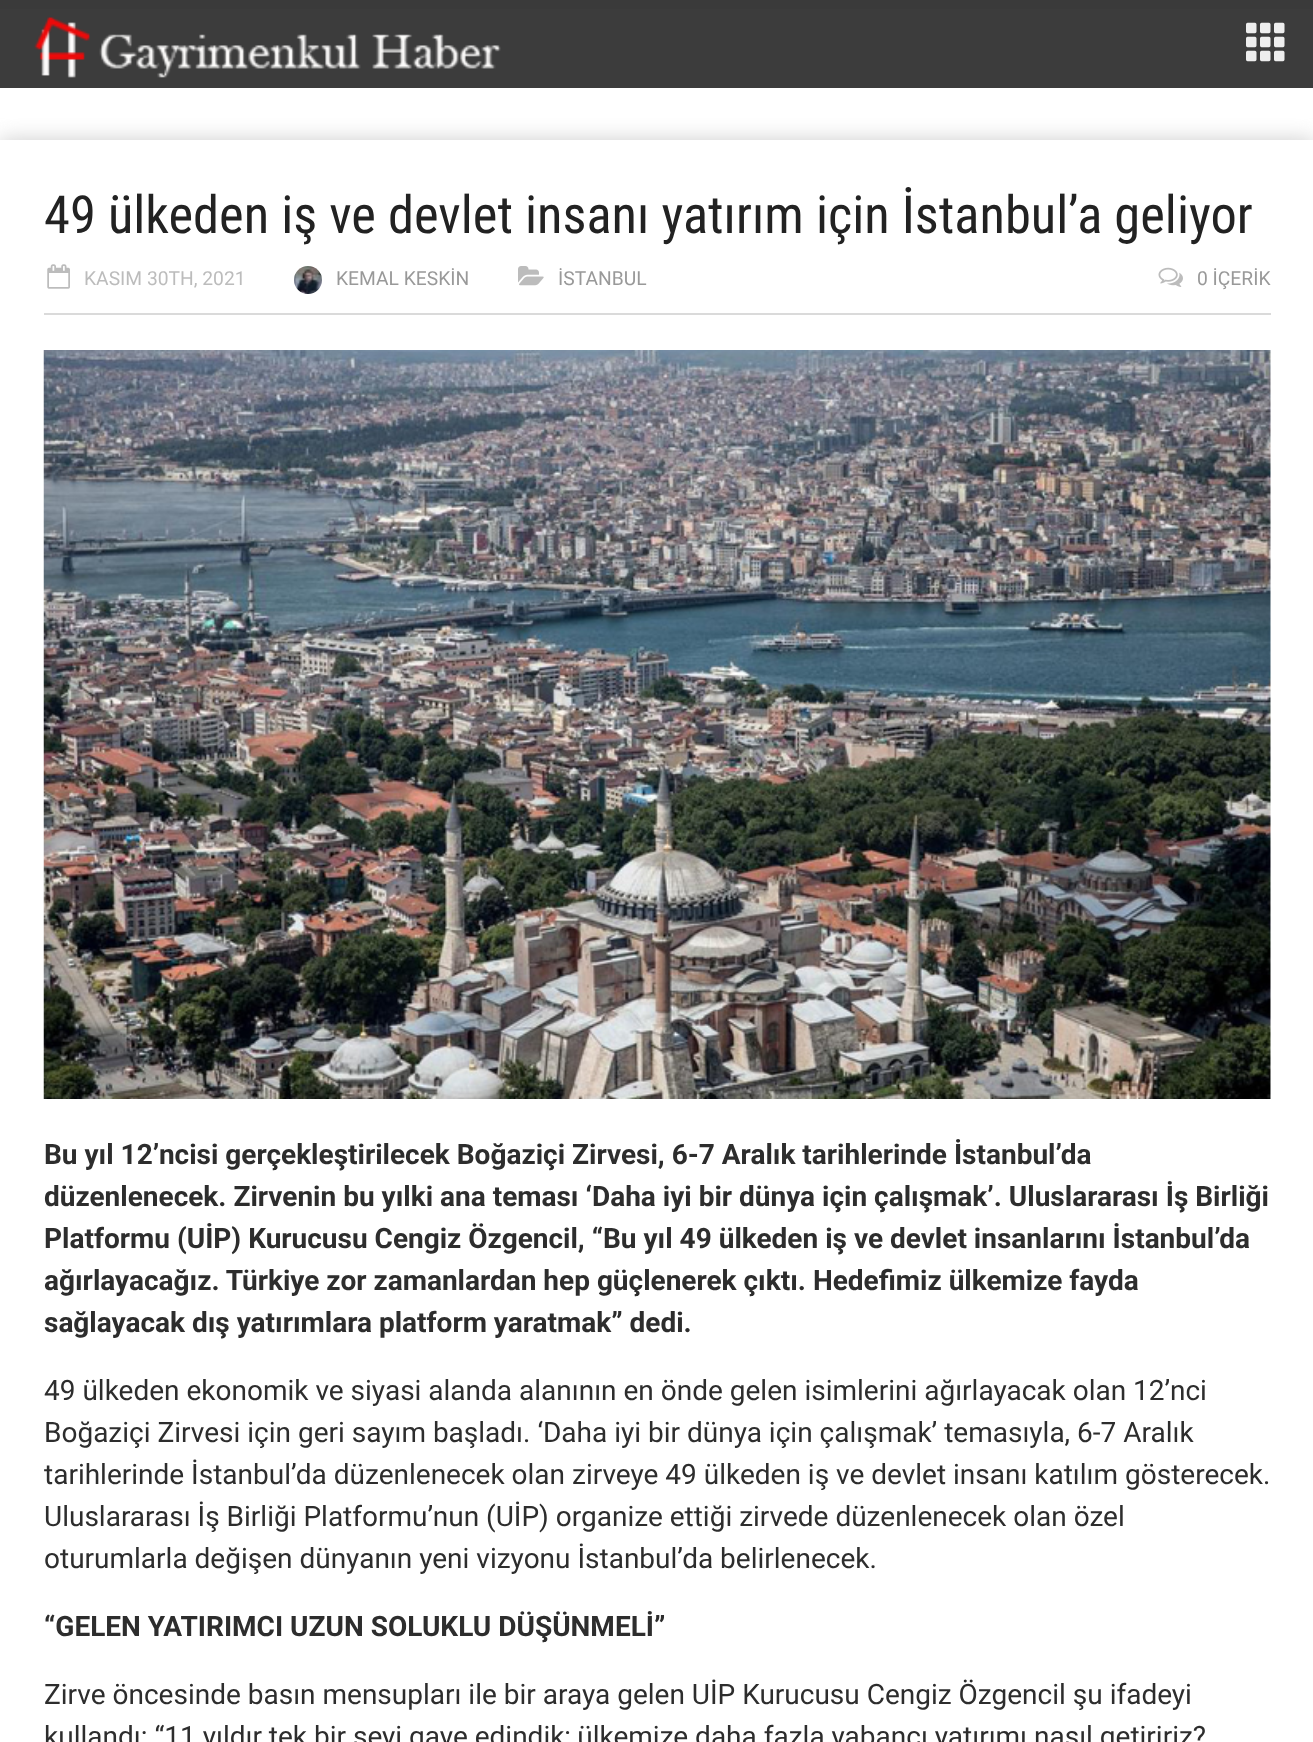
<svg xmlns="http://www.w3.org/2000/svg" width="1313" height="1742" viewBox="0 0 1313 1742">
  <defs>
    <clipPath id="clip1"><rect x="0" y="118" width="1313" height="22"/></clipPath>
    <filter id="blur1" x="-50%" y="-200%" width="200%" height="500%"><feGaussianBlur stdDeviation="10.5"/></filter>
  </defs>
  <rect width="100%" height="100%" fill="#ffffff"/>
  <rect x="0" y="9" width="1313" height="79" fill="#3c3c3c"/>
  <rect x="0" y="0" width="1313" height="9" fill="#3a3a3a"/>
  <image x="34" y="17" width="467" height="61" href="img1.png"/>
  <image x="1246" y="22" width="39" height="40" href="img2.png"/>
  <g clip-path="url(#clip1)">
    <rect x="0" y="140" width="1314" height="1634" fill="#cccccc" filter="url(#blur1)"/>
  </g>
  <rect x="44" y="313" width="1227" height="2" fill="#dadada"/>
  <text x="44" y="233" font-family="Roboto Condensed" font-size="52.5" fill="#222222">49 ülkeden iş ve devlet insanı yatırım için İstanbul’a geliyor</text>
  <image x="47" y="264" width="23" height="25" href="img3.png"/>
  <text x="84" y="285" font-family="Roboto" font-size="19.25" fill="#bcbcbc">KASIM 30TH, 2021</text>
  <image x="294" y="266" width="28" height="28" href="img4.png"/>
  <text x="336" y="285" font-family="Roboto" font-size="19.25" fill="#999999">KEMAL KESKİN</text>
  <image x="518" y="266" width="26" height="20" href="img5.png"/>
  <text x="558" y="285" font-family="Roboto" font-size="19.25" fill="#999999">İSTANBUL</text>
  <image x="1158" y="267" width="25" height="20" href="img6.png"/>
  <text x="1197" y="285" font-family="Roboto" font-size="19.25" fill="#999999">0 İÇERİK</text>
  <image x="43" y="350" width="1228" height="749" href="img7.png"/>
  <text x="44" y="1164" font-family="Roboto" font-size="28" font-weight="bold" fill="#2d2d2d">Bu yıl 12’ncisi gerçekleştirilecek Boğaziçi Zirvesi, 6-7 Aralık tarihlerinde İstanbul’da</text>
  <text x="44" y="1206" font-family="Roboto" font-size="28" font-weight="bold" fill="#2d2d2d">düzenlenecek. Zirvenin bu yılki ana teması ‘Daha iyi bir dünya için çalışmak’. Uluslararası İş Birliği</text>
  <text x="44" y="1248" font-family="Roboto" font-size="28" font-weight="bold" fill="#2d2d2d">Platformu (UİP) Kurucusu Cengiz Özgencil, “Bu yıl 49 ülkeden iş ve devlet insanlarını İstanbul’da</text>
  <text x="44" y="1290" font-family="Roboto" font-size="28" font-weight="bold" fill="#2d2d2d">ağırlayacağız. Türkiye zor zamanlardan hep güçlenerek çıktı. Hedefimiz ülkemize fayda</text>
  <text x="44" y="1332" font-family="Roboto" font-size="28" font-weight="bold" fill="#2d2d2d">sağlayacak dış yatırımlara platform yaratmak” dedi.</text>
  <text x="44" y="1400" font-family="Roboto" font-size="28" fill="#2d2d2d">49 ülkeden ekonomik ve siyasi alanda alanının en önde gelen isimlerini ağırlayacak olan 12’nci</text>
  <text x="44" y="1442" font-family="Roboto" font-size="28" fill="#2d2d2d">Boğaziçi Zirvesi için geri sayım başladı. ‘Daha iyi bir dünya için çalışmak’ temasıyla, 6-7 Aralık</text>
  <text x="44" y="1484" font-family="Roboto" font-size="28" fill="#2d2d2d">tarihlerinde İstanbul’da düzenlenecek olan zirveye 49 ülkeden iş ve devlet insanı katılım gösterecek.</text>
  <text x="44" y="1526" font-family="Roboto" font-size="28" fill="#2d2d2d">Uluslararası İş Birliği Platformu’nun (UİP) organize ettiği zirvede düzenlenecek olan özel</text>
  <text x="44" y="1568" font-family="Roboto" font-size="28" fill="#2d2d2d">oturumlarla değişen dünyanın yeni vizyonu İstanbul’da belirlenecek.</text>
  <text x="44" y="1636" font-family="Roboto" font-size="28" font-weight="bold" fill="#2d2d2d">“GELEN YATIRIMCI UZUN SOLUKLU DÜŞÜNMELİ”</text>
  <text x="44" y="1704" font-family="Roboto" font-size="28" fill="#2d2d2d">Zirve öncesinde basın mensupları ile bir araya gelen UİP Kurucusu Cengiz Özgencil şu ifadeyi</text>
  <text x="44" y="1746" font-family="Roboto" font-size="28" fill="#2d2d2d">kullandı: “11 yıldır tek bir şeyi gaye edindik; ülkemize daha fazla yabancı yatırımı nasıl getiririz?</text>
</svg>
